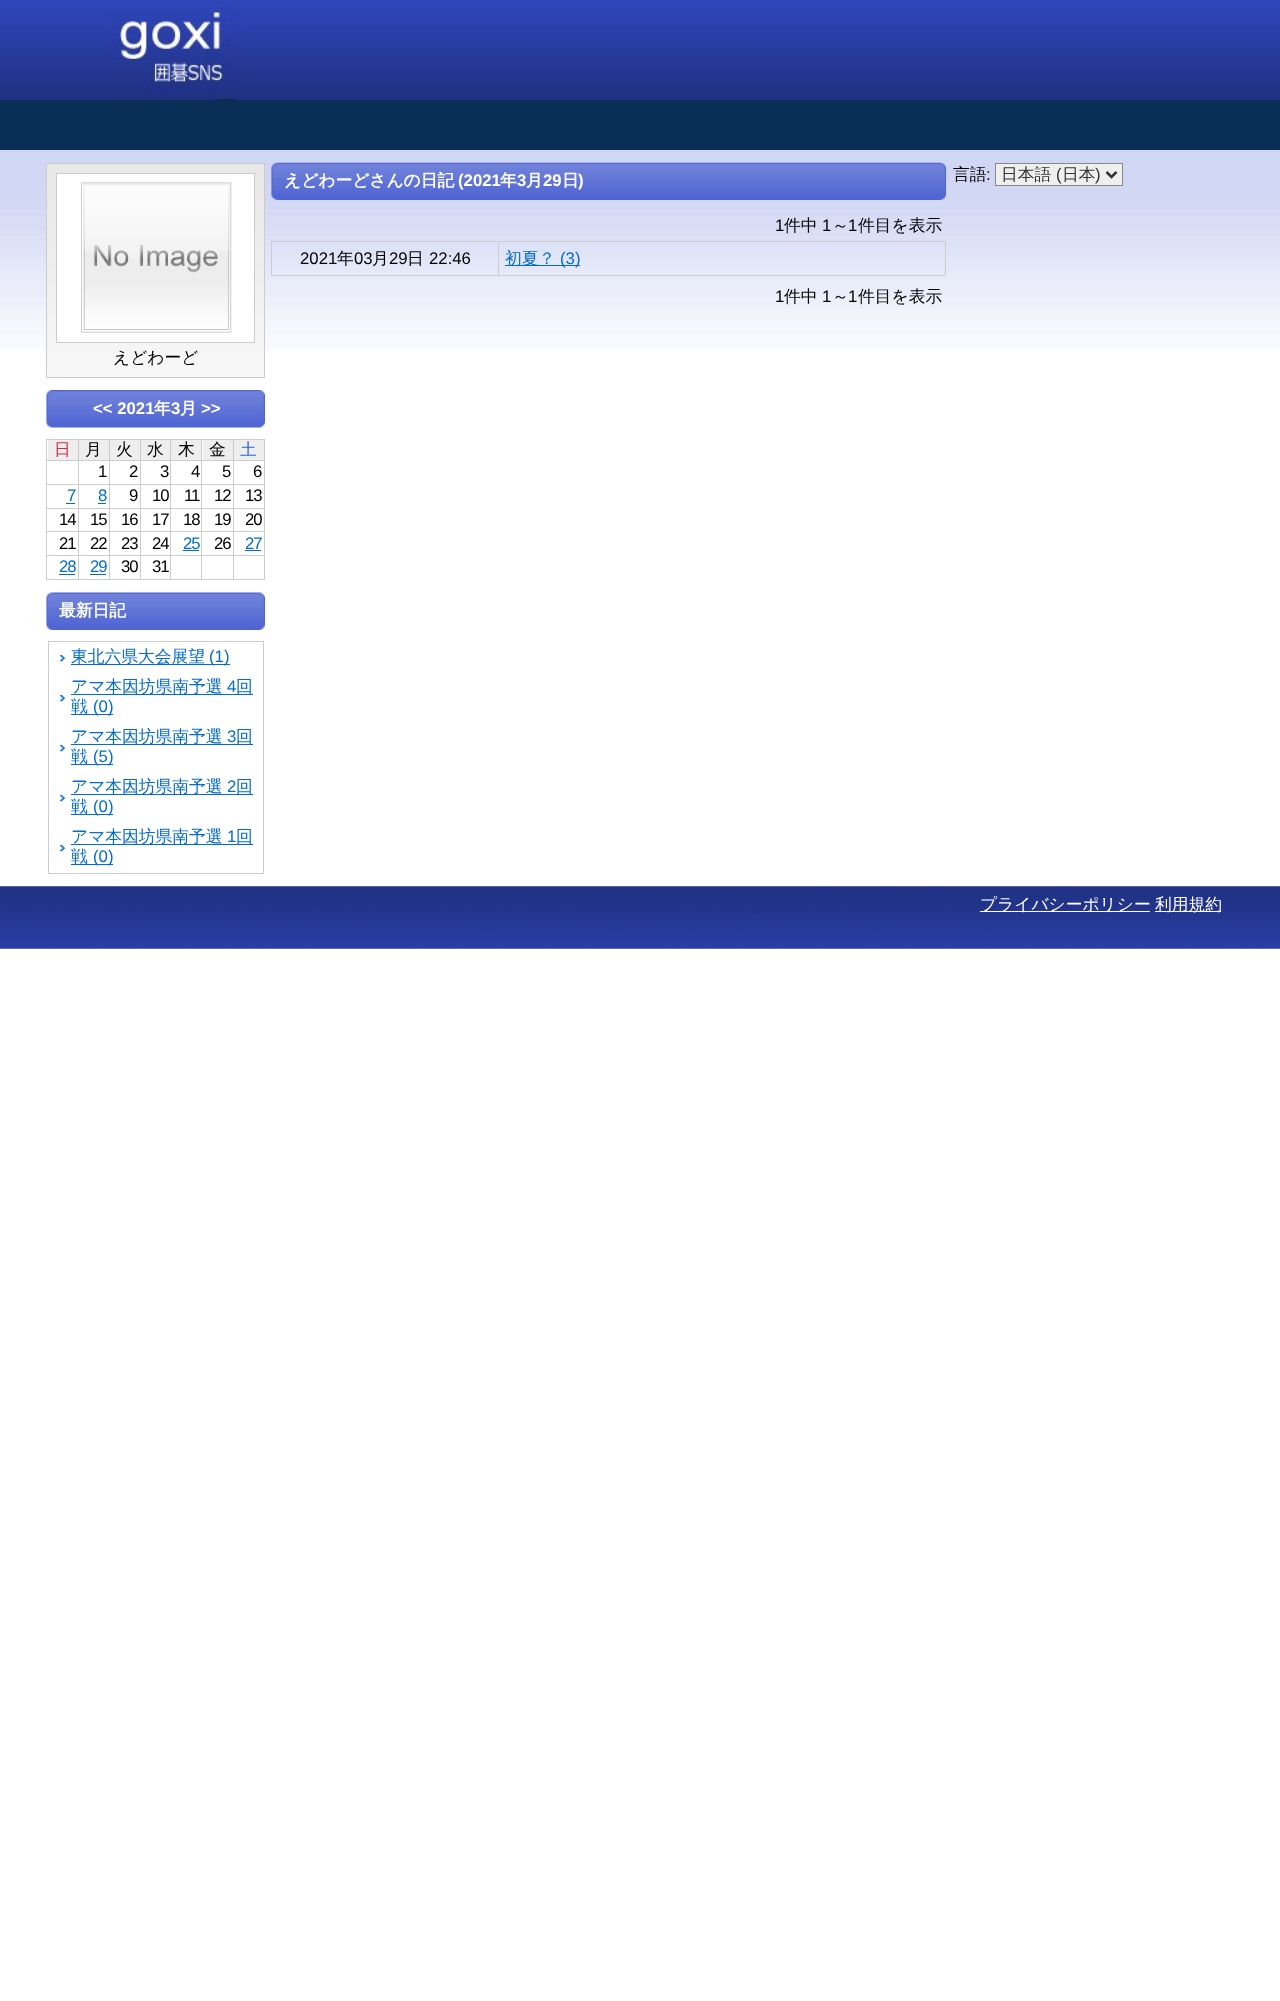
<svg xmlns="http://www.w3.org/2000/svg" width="1280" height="2001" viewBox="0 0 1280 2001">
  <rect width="100%" height="100%" fill="#ffffff"/>
  <rect x="0" y="100" width="1280" height="50" fill="#092f56"/>
  <image x="0" y="0" width="1280" height="100" href="img1.png"/>
  <image x="106" y="0" width="139" height="100" href="img2.png"/>
  <image x="0" y="150" width="1280" height="199" href="img3.png"/>
  <image x="271" y="162" width="676" height="38" href="img4.png"/>
  <text x="284" y="186" font-family="WenQuanYi Zen Hei" font-size="16.75" font-weight="bold" fill="#ffffff">えどわーどさんの日記</text>
  <text x="458" y="186" font-family="Liberation Sans" font-size="16.75" font-weight="bold" fill="#ffffff">(2021</text>
  <text x="500" y="186" font-family="WenQuanYi Zen Hei" font-size="16.75" font-weight="bold" fill="#ffffff">年</text>
  <text x="517" y="186" font-family="Liberation Sans" font-size="16.75" font-weight="bold" fill="#ffffff">3</text>
  <text x="526" y="186" font-family="WenQuanYi Zen Hei" font-size="16.75" font-weight="bold" fill="#ffffff">月</text>
  <text x="543" y="186" font-family="Liberation Sans" font-size="16.75" font-weight="bold" fill="#ffffff">29</text>
  <text x="562" y="186" font-family="WenQuanYi Zen Hei" font-size="16.75" font-weight="bold" fill="#ffffff">日</text>
  <text x="578" y="186" font-family="Liberation Sans" font-size="16.75" font-weight="bold" fill="#ffffff">)</text>
  <text x="775" y="231" font-family="Liberation Sans" font-size="16.75" fill="#000000">1</text>
  <text x="784" y="231" font-family="WenQuanYi Zen Hei" font-size="16.75" font-weight="500" fill="#000000">件中</text>
  <text x="822" y="231" font-family="Liberation Sans" font-size="16.75" fill="#000000">1</text>
  <text x="832" y="231" font-family="WenQuanYi Zen Hei" font-size="16.75" font-weight="500" fill="#000000">～</text>
  <text x="848" y="231" font-family="Liberation Sans" font-size="16.75" fill="#000000">1</text>
  <text x="858" y="231" font-family="WenQuanYi Zen Hei" font-size="16.75" font-weight="500" fill="#000000">件目を表示</text>
  <rect x="271.5" y="241.5" width="674" height="34" fill="none" stroke="#cccccc"/>
  <text x="300" y="264" font-family="Liberation Sans" font-size="16.75" fill="#000000">2021</text>
  <text x="337" y="264" font-family="WenQuanYi Zen Hei" font-size="16.75" font-weight="500" fill="#000000">年</text>
  <text x="354" y="264" font-family="Liberation Sans" font-size="16.75" fill="#000000">03</text>
  <text x="372" y="264" font-family="WenQuanYi Zen Hei" font-size="16.75" font-weight="500" fill="#000000">月</text>
  <text x="389" y="264" font-family="Liberation Sans" font-size="16.75" fill="#000000">29</text>
  <text x="407" y="264" font-family="WenQuanYi Zen Hei" font-size="16.75" font-weight="500" fill="#000000">日</text>
  <text x="429" y="264" font-family="Liberation Sans" font-size="16.75" fill="#000000">22:46</text>
  <rect x="498" y="243" width="1" height="32" fill="#cccccc"/>
  <rect x="505" y="265" width="75" height="1" fill="#026cd1"/>
  <text x="505" y="264" font-family="WenQuanYi Zen Hei" font-size="16.75" font-weight="500" fill="#026cd1">初夏？</text>
  <text x="560" y="264" font-family="Liberation Sans" font-size="16.75" fill="#026cd1">(3)</text>
  <text x="775" y="302" font-family="Liberation Sans" font-size="16.75" fill="#000000">1</text>
  <text x="784" y="302" font-family="WenQuanYi Zen Hei" font-size="16.75" font-weight="500" fill="#000000">件中</text>
  <text x="822" y="302" font-family="Liberation Sans" font-size="16.75" fill="#000000">1</text>
  <text x="832" y="302" font-family="WenQuanYi Zen Hei" font-size="16.75" font-weight="500" fill="#000000">～</text>
  <text x="848" y="302" font-family="Liberation Sans" font-size="16.75" fill="#000000">1</text>
  <text x="858" y="302" font-family="WenQuanYi Zen Hei" font-size="16.75" font-weight="500" fill="#000000">件目を表示</text>
  <image x="47" y="164" width="217" height="213" href="img5.png"/>
  <rect x="46.5" y="163.5" width="218" height="214" fill="none" stroke="#cccccc"/>
  <rect x="56.5" y="173.5" width="198" height="169" fill="#ffffff" stroke="#cccccc"/>
  <image x="81" y="182" width="151" height="151" href="img6.png"/>
  <text x="113" y="363" font-family="WenQuanYi Zen Hei" font-size="16.75" font-weight="500" fill="#000000">えどわーど</text>
  <image x="46" y="390" width="219" height="38" href="img7.png"/>
  <text x="93" y="414" font-family="Liberation Sans" font-size="16.75" font-weight="bold" fill="#ffffff">&lt;&lt; 2021</text>
  <text x="154" y="414" font-family="WenQuanYi Zen Hei" font-size="16.75" font-weight="bold" fill="#ffffff">年</text>
  <text x="171" y="414" font-family="Liberation Sans" font-size="16.75" font-weight="bold" fill="#ffffff">3</text>
  <text x="180" y="414" font-family="WenQuanYi Zen Hei" font-size="16.75" font-weight="bold" fill="#ffffff">月</text>
  <text x="201" y="414" font-family="Liberation Sans" font-size="16.75" font-weight="bold" fill="#ffffff">&gt;&gt;</text>
  <rect x="264" y="439" width="1" height="141" fill="#cccccc"/>
  <rect x="46" y="579" width="219" height="1" fill="#cccccc"/>
  <rect x="48" y="440" width="30" height="20" fill="#eeeeee"/>
  <rect x="46" y="439" width="218" height="1" fill="#cccccc"/>
  <rect x="46" y="439" width="1" height="21" fill="#cccccc"/>
  <text x="54" y="455" font-family="WenQuanYi Zen Hei" font-size="16.75" font-weight="500" fill="#d92c49">日</text>
  <rect x="79" y="440" width="30" height="20" fill="#eeeeee"/>
  <rect x="78" y="439" width="1" height="21" fill="#cccccc"/>
  <text x="85" y="455" font-family="WenQuanYi Zen Hei" font-size="16.75" font-weight="500" fill="#000000">月</text>
  <rect x="110" y="440" width="30" height="20" fill="#eeeeee"/>
  <rect x="109" y="439" width="1" height="21" fill="#cccccc"/>
  <text x="116" y="455" font-family="WenQuanYi Zen Hei" font-size="16.75" font-weight="500" fill="#000000">火</text>
  <rect x="141" y="440" width="29" height="20" fill="#eeeeee"/>
  <rect x="140" y="439" width="1" height="21" fill="#cccccc"/>
  <text x="147" y="455" font-family="WenQuanYi Zen Hei" font-size="16.75" font-weight="500" fill="#000000">水</text>
  <rect x="171" y="440" width="30" height="20" fill="#eeeeee"/>
  <rect x="170" y="439" width="1" height="21" fill="#cccccc"/>
  <text x="178" y="455" font-family="WenQuanYi Zen Hei" font-size="16.75" font-weight="500" fill="#000000">木</text>
  <rect x="203" y="440" width="30" height="20" fill="#eeeeee"/>
  <rect x="201" y="439" width="1" height="21" fill="#cccccc"/>
  <text x="209" y="455" font-family="WenQuanYi Zen Hei" font-size="16.75" font-weight="500" fill="#000000">金</text>
  <rect x="234" y="440" width="30" height="20" fill="#eeeeee"/>
  <rect x="233" y="439" width="1" height="21" fill="#cccccc"/>
  <text x="240" y="455" font-family="WenQuanYi Zen Hei" font-size="16.75" font-weight="500" fill="#2c65d9">土</text>
  <rect x="46" y="460" width="218" height="1" fill="#cccccc"/>
  <rect x="46" y="460" width="1" height="24" fill="#cccccc"/>
  <rect x="78" y="460" width="1" height="24" fill="#cccccc"/>
  <text x="98" y="477" font-family="Liberation Sans" font-size="16.75" letter-spacing="-1" fill="#000000">1</text>
  <rect x="109" y="460" width="1" height="24" fill="#cccccc"/>
  <text x="129" y="477" font-family="Liberation Sans" font-size="16.75" letter-spacing="-1" fill="#000000">2</text>
  <rect x="140" y="460" width="1" height="24" fill="#cccccc"/>
  <text x="160" y="477" font-family="Liberation Sans" font-size="16.75" letter-spacing="-1" fill="#000000">3</text>
  <rect x="170" y="460" width="1" height="24" fill="#cccccc"/>
  <text x="191" y="477" font-family="Liberation Sans" font-size="16.75" letter-spacing="-1" fill="#000000">4</text>
  <rect x="201" y="460" width="1" height="24" fill="#cccccc"/>
  <text x="222" y="477" font-family="Liberation Sans" font-size="16.75" letter-spacing="-1" fill="#000000">5</text>
  <rect x="233" y="460" width="1" height="24" fill="#cccccc"/>
  <text x="253" y="477" font-family="Liberation Sans" font-size="16.75" letter-spacing="-1" fill="#000000">6</text>
  <rect x="46" y="484" width="218" height="1" fill="#cccccc"/>
  <rect x="46" y="484" width="1" height="24" fill="#cccccc"/>
  <text x="67" y="501" font-family="Liberation Sans" font-size="16.75" letter-spacing="-1" fill="#026cd1">7</text>
  <rect x="66" y="503" width="9" height="1" fill="#026cd1"/>
  <rect x="78" y="484" width="1" height="24" fill="#cccccc"/>
  <text x="98" y="501" font-family="Liberation Sans" font-size="16.75" letter-spacing="-1" fill="#026cd1">8</text>
  <rect x="98" y="503" width="8" height="1" fill="#026cd1"/>
  <rect x="109" y="484" width="1" height="24" fill="#cccccc"/>
  <text x="129" y="501" font-family="Liberation Sans" font-size="16.75" letter-spacing="-1" fill="#000000">9</text>
  <rect x="140" y="484" width="1" height="24" fill="#cccccc"/>
  <text x="152" y="501" font-family="Liberation Sans" font-size="16.75" letter-spacing="-1" fill="#000000">10</text>
  <rect x="170" y="484" width="1" height="24" fill="#cccccc"/>
  <text x="184" y="501" font-family="Liberation Sans" font-size="16.75" letter-spacing="-1" fill="#000000">11</text>
  <rect x="201" y="484" width="1" height="24" fill="#cccccc"/>
  <text x="214" y="501" font-family="Liberation Sans" font-size="16.75" letter-spacing="-1" fill="#000000">12</text>
  <rect x="233" y="484" width="1" height="24" fill="#cccccc"/>
  <text x="245" y="501" font-family="Liberation Sans" font-size="16.75" letter-spacing="-1" fill="#000000">13</text>
  <rect x="46" y="508" width="218" height="1" fill="#cccccc"/>
  <rect x="46" y="508" width="1" height="23" fill="#cccccc"/>
  <text x="59" y="525" font-family="Liberation Sans" font-size="16.75" letter-spacing="-1" fill="#000000">14</text>
  <rect x="78" y="508" width="1" height="23" fill="#cccccc"/>
  <text x="90" y="525" font-family="Liberation Sans" font-size="16.75" letter-spacing="-1" fill="#000000">15</text>
  <rect x="109" y="508" width="1" height="23" fill="#cccccc"/>
  <text x="121" y="525" font-family="Liberation Sans" font-size="16.75" letter-spacing="-1" fill="#000000">16</text>
  <rect x="140" y="508" width="1" height="23" fill="#cccccc"/>
  <text x="152" y="525" font-family="Liberation Sans" font-size="16.75" letter-spacing="-1" fill="#000000">17</text>
  <rect x="170" y="508" width="1" height="23" fill="#cccccc"/>
  <text x="183" y="525" font-family="Liberation Sans" font-size="16.75" letter-spacing="-1" fill="#000000">18</text>
  <rect x="201" y="508" width="1" height="23" fill="#cccccc"/>
  <text x="214" y="525" font-family="Liberation Sans" font-size="16.75" letter-spacing="-1" fill="#000000">19</text>
  <rect x="233" y="508" width="1" height="23" fill="#cccccc"/>
  <text x="245" y="525" font-family="Liberation Sans" font-size="16.75" letter-spacing="-1" fill="#000000">20</text>
  <rect x="46" y="531" width="218" height="1" fill="#cccccc"/>
  <rect x="46" y="531" width="1" height="24" fill="#cccccc"/>
  <text x="59" y="549" font-family="Liberation Sans" font-size="16.75" letter-spacing="-1" fill="#000000">21</text>
  <rect x="78" y="531" width="1" height="24" fill="#cccccc"/>
  <text x="90" y="549" font-family="Liberation Sans" font-size="16.75" letter-spacing="-1" fill="#000000">22</text>
  <rect x="109" y="531" width="1" height="24" fill="#cccccc"/>
  <text x="121" y="549" font-family="Liberation Sans" font-size="16.75" letter-spacing="-1" fill="#000000">23</text>
  <rect x="140" y="531" width="1" height="24" fill="#cccccc"/>
  <text x="152" y="549" font-family="Liberation Sans" font-size="16.75" letter-spacing="-1" fill="#000000">24</text>
  <rect x="170" y="531" width="1" height="24" fill="#cccccc"/>
  <text x="183" y="549" font-family="Liberation Sans" font-size="16.75" letter-spacing="-1" fill="#026cd1">25</text>
  <rect x="183" y="550" width="16" height="1" fill="#026cd1"/>
  <rect x="201" y="531" width="1" height="24" fill="#cccccc"/>
  <text x="214" y="549" font-family="Liberation Sans" font-size="16.75" letter-spacing="-1" fill="#000000">26</text>
  <rect x="233" y="531" width="1" height="24" fill="#cccccc"/>
  <text x="245" y="549" font-family="Liberation Sans" font-size="16.75" letter-spacing="-1" fill="#026cd1">27</text>
  <rect x="245" y="550" width="16" height="1" fill="#026cd1"/>
  <rect x="46" y="555" width="218" height="1" fill="#cccccc"/>
  <rect x="46" y="555" width="1" height="24" fill="#cccccc"/>
  <text x="59" y="572" font-family="Liberation Sans" font-size="16.75" letter-spacing="-1" fill="#026cd1">28</text>
  <rect x="59" y="574" width="16" height="1" fill="#026cd1"/>
  <rect x="78" y="555" width="1" height="24" fill="#cccccc"/>
  <text x="90" y="572" font-family="Liberation Sans" font-size="16.75" letter-spacing="-1" fill="#026cd1">29</text>
  <rect x="90" y="574" width="16" height="1" fill="#026cd1"/>
  <rect x="109" y="555" width="1" height="24" fill="#cccccc"/>
  <text x="121" y="572" font-family="Liberation Sans" font-size="16.75" letter-spacing="-1" fill="#000000">30</text>
  <rect x="140" y="555" width="1" height="24" fill="#cccccc"/>
  <text x="152" y="572" font-family="Liberation Sans" font-size="16.75" letter-spacing="-1" fill="#000000">31</text>
  <rect x="170" y="555" width="1" height="24" fill="#cccccc"/>
  <rect x="201" y="555" width="1" height="24" fill="#cccccc"/>
  <rect x="233" y="555" width="1" height="24" fill="#cccccc"/>
  <image x="46" y="592" width="219" height="38" href="img8.png"/>
  <text x="59" y="616" font-family="WenQuanYi Zen Hei" font-size="16.75" font-weight="bold" fill="#ffffff">最新日記</text>
  <rect x="48.5" y="641.5" width="215" height="232" fill="none" stroke="#cccccc"/>
  <image x="59" y="654" width="7" height="8" href="img9.png"/>
  <rect x="71" y="664" width="159" height="1" fill="#026cd1"/>
  <text x="71" y="662" font-family="WenQuanYi Zen Hei" font-size="16.75" font-weight="500" fill="#026cd1">東北六県大会展望</text>
  <text x="209" y="662" font-family="Liberation Sans" font-size="16.75" fill="#026cd1">(1)</text>
  <image x="59" y="694" width="7" height="8" href="img9.png"/>
  <rect x="71" y="694" width="182" height="1" fill="#026cd1"/>
  <text x="71" y="692" font-family="WenQuanYi Zen Hei" font-size="16.75" font-weight="500" fill="#026cd1">アマ本因坊県南予選</text>
  <text x="227" y="692" font-family="Liberation Sans" font-size="16.75" fill="#026cd1">4</text>
  <text x="236" y="692" font-family="WenQuanYi Zen Hei" font-size="16.75" font-weight="500" fill="#026cd1">回</text>
  <rect x="71" y="714" width="42" height="1" fill="#026cd1"/>
  <text x="71" y="712" font-family="WenQuanYi Zen Hei" font-size="16.75" font-weight="500" fill="#026cd1">戦</text>
  <text x="93" y="712" font-family="Liberation Sans" font-size="16.75" fill="#026cd1">(0)</text>
  <image x="59" y="744" width="7" height="8" href="img9.png"/>
  <rect x="71" y="744" width="182" height="1" fill="#026cd1"/>
  <text x="71" y="742" font-family="WenQuanYi Zen Hei" font-size="16.75" font-weight="500" fill="#026cd1">アマ本因坊県南予選</text>
  <text x="227" y="742" font-family="Liberation Sans" font-size="16.75" fill="#026cd1">3</text>
  <text x="236" y="742" font-family="WenQuanYi Zen Hei" font-size="16.75" font-weight="500" fill="#026cd1">回</text>
  <rect x="71" y="764" width="42" height="1" fill="#026cd1"/>
  <text x="71" y="762" font-family="WenQuanYi Zen Hei" font-size="16.75" font-weight="500" fill="#026cd1">戦</text>
  <text x="93" y="762" font-family="Liberation Sans" font-size="16.75" fill="#026cd1">(5)</text>
  <image x="59" y="794" width="7" height="8" href="img9.png"/>
  <rect x="71" y="794" width="182" height="1" fill="#026cd1"/>
  <text x="71" y="792" font-family="WenQuanYi Zen Hei" font-size="16.75" font-weight="500" fill="#026cd1">アマ本因坊県南予選</text>
  <text x="227" y="792" font-family="Liberation Sans" font-size="16.75" fill="#026cd1">2</text>
  <text x="236" y="792" font-family="WenQuanYi Zen Hei" font-size="16.75" font-weight="500" fill="#026cd1">回</text>
  <rect x="71" y="814" width="42" height="1" fill="#026cd1"/>
  <text x="71" y="812" font-family="WenQuanYi Zen Hei" font-size="16.75" font-weight="500" fill="#026cd1">戦</text>
  <text x="93" y="812" font-family="Liberation Sans" font-size="16.75" fill="#026cd1">(0)</text>
  <image x="59" y="844" width="7" height="8" href="img9.png"/>
  <rect x="71" y="844" width="182" height="1" fill="#026cd1"/>
  <text x="71" y="842" font-family="WenQuanYi Zen Hei" font-size="16.75" font-weight="500" fill="#026cd1">アマ本因坊県南予選</text>
  <text x="227" y="842" font-family="Liberation Sans" font-size="16.75" fill="#026cd1">1</text>
  <text x="236" y="842" font-family="WenQuanYi Zen Hei" font-size="16.75" font-weight="500" fill="#026cd1">回</text>
  <rect x="71" y="864" width="42" height="1" fill="#026cd1"/>
  <text x="71" y="862" font-family="WenQuanYi Zen Hei" font-size="16.75" font-weight="500" fill="#026cd1">戦</text>
  <text x="93" y="862" font-family="Liberation Sans" font-size="16.75" fill="#026cd1">(0)</text>
  <text x="953" y="180" font-family="WenQuanYi Zen Hei" font-size="16.75" font-weight="500" fill="#000000">言語</text>
  <text x="986" y="180" font-family="Liberation Sans" font-size="16.75" fill="#000000">:</text>
  <rect x="995.5" y="163.5" width="127" height="22" fill="#efefef" stroke="#888888"/>
  <path d="M1106.5 172L1111.5 177L1116.5 172" fill="none" stroke="#333333" stroke-width="2.5"/>
  <text x="1001" y="180" font-family="WenQuanYi Zen Hei" font-size="16.75" font-weight="500" fill="#333333">日本語</text>
  <text x="1056" y="180" font-family="Liberation Sans" font-size="16.75" fill="#333333">(</text>
  <text x="1062" y="180" font-family="WenQuanYi Zen Hei" font-size="16.75" font-weight="500" fill="#333333">日本</text>
  <text x="1095" y="180" font-family="Liberation Sans" font-size="16.75" fill="#333333">)</text>
  <image x="0" y="886" width="1280" height="63" href="img10.png"/>
  <rect x="980" y="911" width="170" height="1" fill="#ffffff"/>
  <text x="980" y="910" font-family="WenQuanYi Zen Hei" font-size="16.75" font-weight="500" fill="#ffffff">プライバシーポリシー</text>
  <rect x="1155" y="911" width="66" height="1" fill="#ffffff"/>
  <text x="1155" y="910" font-family="WenQuanYi Zen Hei" font-size="16.75" font-weight="500" fill="#ffffff">利用規約</text>
</svg>
